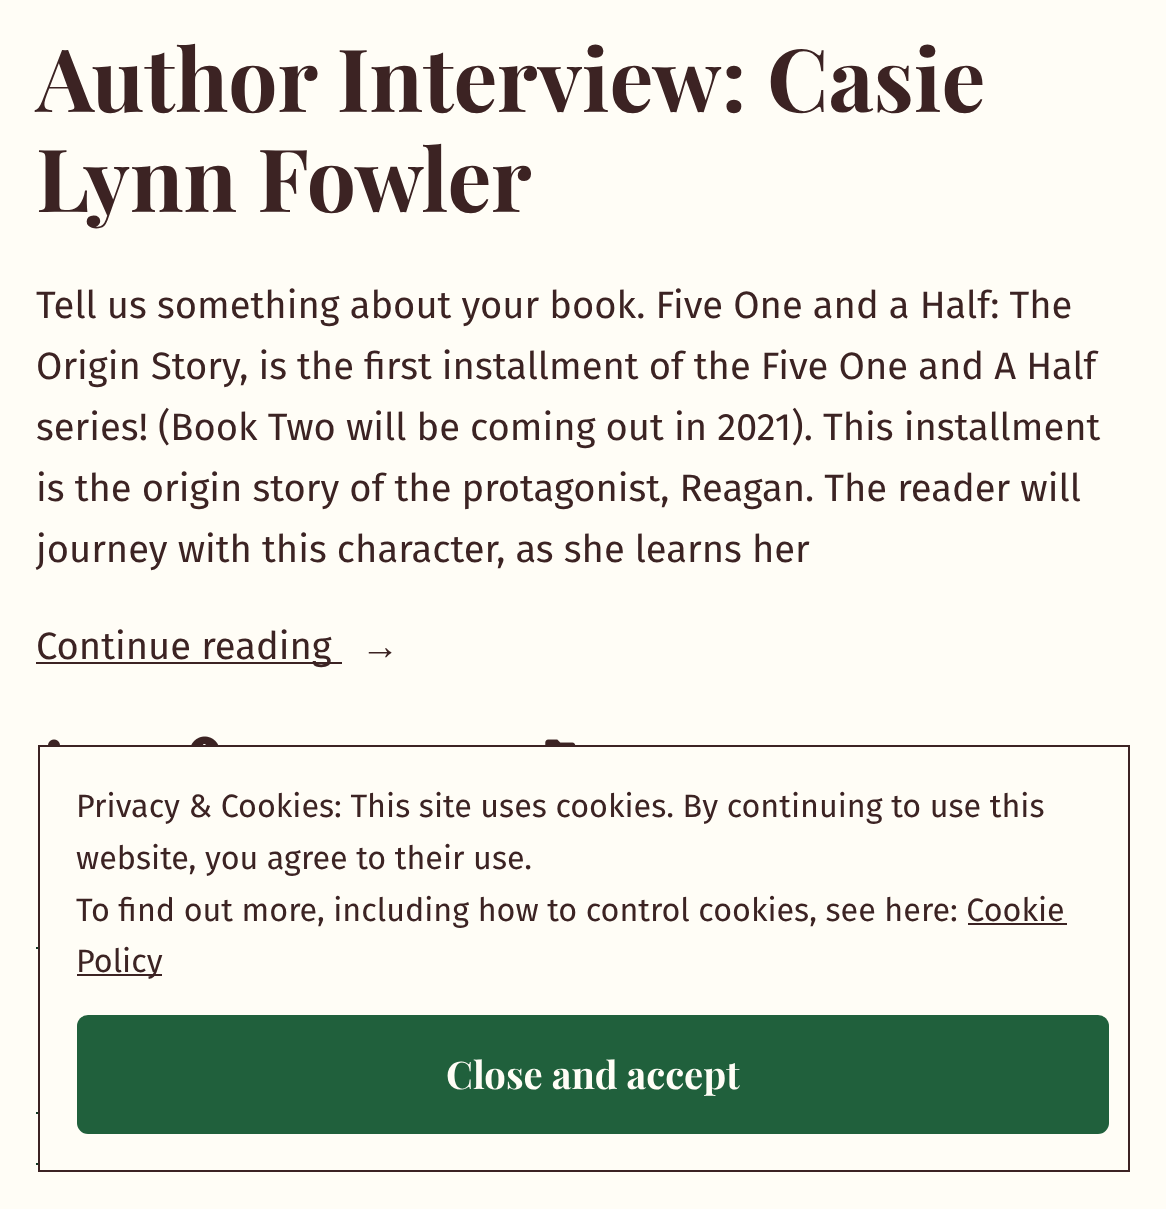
<svg xmlns="http://www.w3.org/2000/svg" width="1166" height="1209" viewBox="0 0 1166 1209">
  <rect width="100%" height="100%" fill="#fffdf6"/>
  <text x="36" y="112" font-family="Playfair Display" font-size="87.25" font-weight="bold" fill="#3c2323">Author Interview: Casie</text>
  <text x="36" y="212" font-family="Playfair Display" font-size="87.25" font-weight="bold" fill="#3c2323">Lynn Fowler</text>
  <text x="36" y="318" font-family="Fira Sans" font-size="38.15" fill="#3c2323">Tell us something about your book. Five One and a Half: The</text>
  <text x="36" y="379" font-family="Fira Sans" font-size="38.15" fill="#3c2323">Origin Story, is the first installment of the Five One and A Half</text>
  <text x="36" y="440" font-family="Fira Sans" font-size="38.15" fill="#3c2323">series! (Book Two will be coming out in 2021). This installment</text>
  <text x="36" y="501" font-family="Fira Sans" font-size="38.15" fill="#3c2323">is the origin story of the protagonist, Reagan. The reader will</text>
  <text x="36" y="562" font-family="Fira Sans" font-size="38.15" fill="#3c2323">journey with this character, as she learns her</text>
  <rect x="36" y="662" width="306" height="2" fill="#3c2323"/>
  <text x="36" y="659" font-family="Fira Sans" font-size="38.15" fill="#3c2323">Continue reading</text>
  <text x="361" y="659" font-family="Liberation Serif" font-size="38.15" fill="#3c2323">→</text>
  <image x="48" y="739" width="12" height="6" href="img1.png"/>
  <image x="191" y="736" width="28" height="9" href="img2.png"/>
  <image x="545" y="739" width="31" height="6" href="img3.png"/>
  <rect x="36" y="947" width="2" height="2" fill="#133a24"/>
  <rect x="36" y="1112" width="2" height="2" fill="#133a24"/>
  <rect x="36" y="1163" width="2" height="2" fill="#133a24"/>
  <rect x="39" y="746" width="1090" height="425" fill="none" stroke="#3c2323" stroke-width="2"/>
  <text x="76" y="817" font-family="Fira Sans" font-size="32.3" fill="#3c2323">Privacy &amp; Cookies: This site uses cookies. By continuing to use this</text>
  <text x="76" y="869" font-family="Fira Sans" font-size="32.3" fill="#3c2323">website, you agree to their use.</text>
  <text x="76" y="921" font-family="Fira Sans" font-size="32.3" fill="#3c2323">To find out more, including how to control cookies, see here: Cookie</text>
  <rect x="77" y="974" width="85" height="2" fill="#3c2323"/>
  <text x="76" y="972" font-family="Fira Sans" font-size="32.3" fill="#3c2323">Policy</text>
  <rect x="968" y="923" width="99" height="2" fill="#3c2323"/>
  <rect x="77" y="1015" width="1032" height="119" rx="11" fill="#20603c"/>
  <text x="446" y="1089" font-family="Playfair Display" font-size="38.15" font-weight="bold" fill="#fffdf6">Close and accept</text>
</svg>
